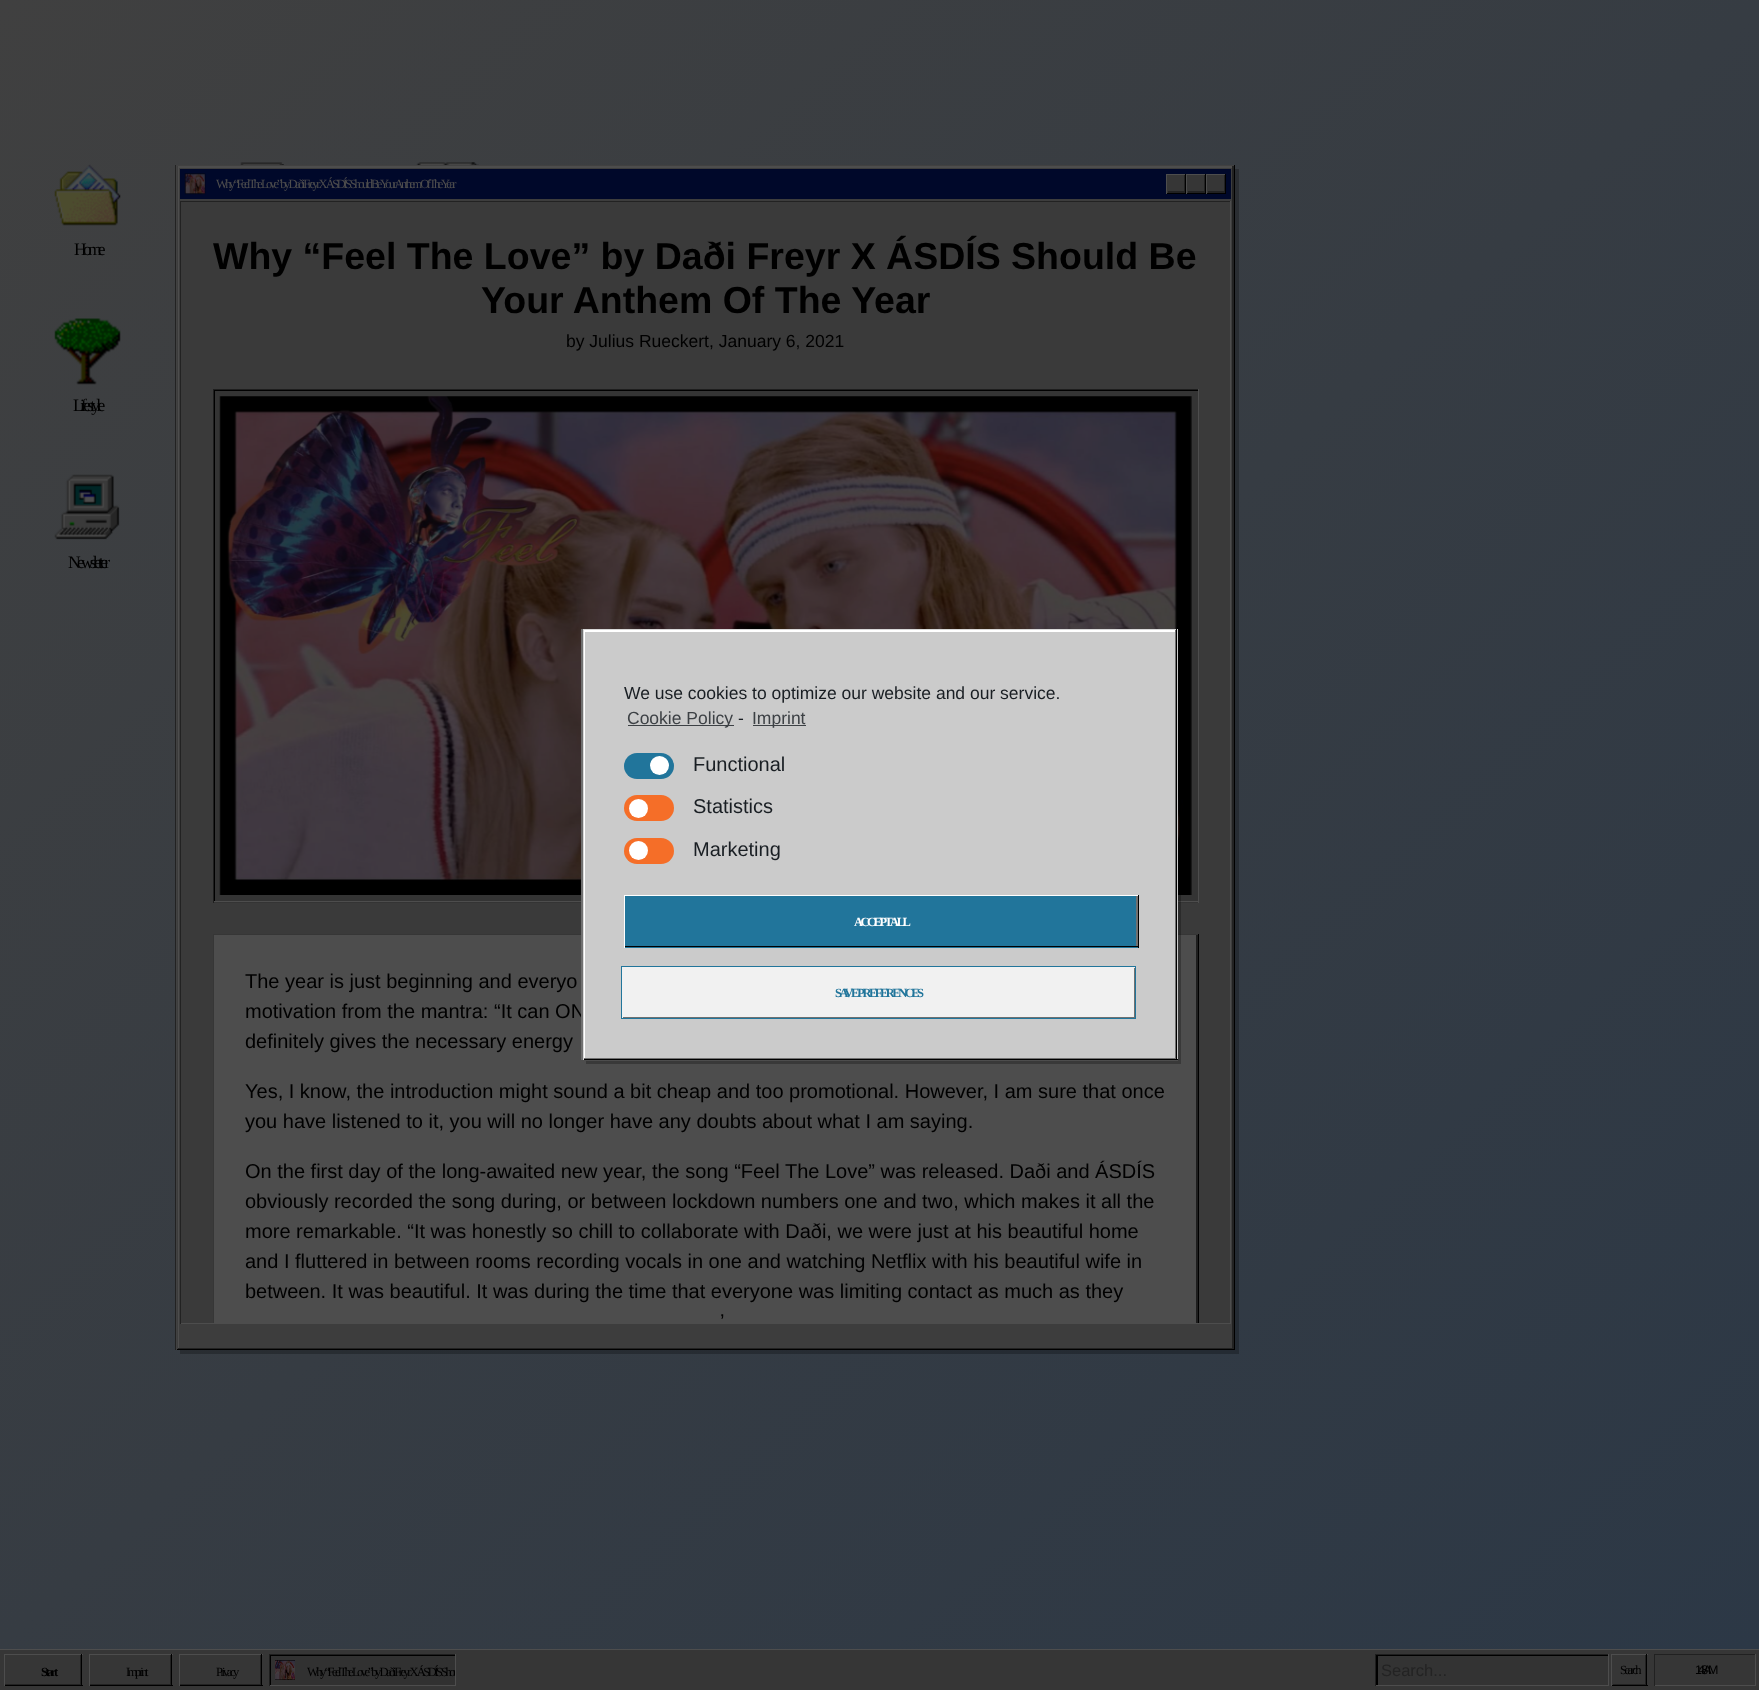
<svg xmlns="http://www.w3.org/2000/svg" width="1759" height="1690" viewBox="0 0 1759 1690">
  <defs>
    <linearGradient id="g1" gradientUnits="userSpaceOnUse" x1="59" y1="-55" x2="1701" y2="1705"><stop offset="0" stop-color="#404040"/><stop offset="1" stop-color="#2c3846"/></linearGradient>
    <filter id="blur1" x="-50%" y="-200%" width="200%" height="500%"><feGaussianBlur stdDeviation="0.5"/></filter>
    <clipPath id="clip1"><rect x="178" y="166" width="1056" height="1183"/></clipPath>
    <clipPath id="clip2"><rect x="1168" y="175" width="17" height="18"/></clipPath>
    <clipPath id="clip3"><rect x="1188" y="175" width="17" height="18"/></clipPath>
    <clipPath id="clip4"><rect x="1208" y="175" width="17" height="18"/></clipPath>
    <clipPath id="clip5"><rect x="214" y="390" width="984" height="511"/></clipPath>
    <clipPath id="clip6"><rect x="214" y="935" width="984" height="388"/></clipPath>
    <clipPath id="clip7"><rect x="584" y="630" width="592" height="429"/></clipPath>
    <clipPath id="clip8"><rect x="625" y="896" width="513" height="50"/></clipPath>
    <clipPath id="clip9"><rect x="623" y="968" width="512" height="50"/></clipPath>
    <clipPath id="clip10"><rect x="5" y="1655" width="76" height="30"/></clipPath>
    <clipPath id="clip11"><rect x="90" y="1655" width="81" height="30"/></clipPath>
    <clipPath id="clip12"><rect x="180" y="1655" width="81" height="30"/></clipPath>
    <clipPath id="clip13"><rect x="270" y="1655" width="185" height="30"/></clipPath>
    <clipPath id="clip14"><rect x="300" y="1663" width="155" height="16"/></clipPath>
    <clipPath id="clip15"><rect x="1376" y="1655" width="232" height="30"/></clipPath>
    <clipPath id="clip16"><rect x="1613" y="1655" width="33" height="30"/></clipPath>
  </defs>
  <rect width="100%" height="100%" fill="#ffffff"/>
  <rect x="0" y="0" width="1759" height="1649" fill="url(#g1)"/>
  <image x="240" y="162" width="44" height="3" href="img1.png"/>
  <image x="416" y="162" width="63" height="3" href="img2.png"/>
  <image x="54" y="164" width="67" height="62" href="img3.png"/>
  <text x="74" y="255" font-family="Liberation Serif" font-size="17.5" letter-spacing="-3.75" fill="#000000">Home</text>
  <image x="54" y="318" width="67" height="67" href="img4.png"/>
  <text x="73" y="411" font-family="Liberation Serif" font-size="17.5" letter-spacing="-3.75" fill="#000000">Lifestyle</text>
  <image x="54" y="474" width="66" height="66" href="img5.png"/>
  <text x="68" y="568" font-family="Liberation Serif" font-size="17.5" letter-spacing="-3.75" fill="#000000">Newsletter</text>
  <path d="M180 1350V1354H1239V169H1235V1350Z" fill="#000000" fill-opacity="0.25"/>
  <rect x="175" y="165" width="1059" height="1185" fill="#222222" filter="url(#blur1)"/>
  <rect x="177" y="166" width="1055" height="1183" fill="#3d3d3d"/>
  <g clip-path="url(#clip1)">
    <path d="M54 42H1358V1472H54ZM179 168H1235V1350H179Z" fill="#4d4d4d" fill-rule="evenodd"/>
    <path d="M54 42H1358V1472H54ZM176 165H1232V1348H176Z" fill="#222222" fill-rule="evenodd"/>
  </g>
  <rect x="176" y="165" width="1059" height="1" fill="#414141"/>
  <rect x="1234" y="165" width="1" height="1185" fill="#000000"/>
  <rect x="176" y="1349" width="1059" height="1" fill="#000000"/>
  <rect x="176" y="165" width="1" height="1185" fill="#414141"/>
  <rect x="180" y="169" width="1051" height="30" fill="#00082a"/>
  <image x="184" y="173" width="22" height="22" href="img6.png"/>
  <text x="216" y="188" font-family="Liberation Serif" font-size="12.5" letter-spacing="-2.5" fill="#4d4d4d">Why “Feel The Love” by Daði Freyr X ÁSDÍS Should Be Your Anthem Of The Year</text>
  <rect x="1167" y="175" width="57" height="18" fill="#363636"/>
  <g clip-path="url(#clip2)">
    <path d="M1044 51H1309V316H1044ZM1166 174H1184V191H1166Z" fill="#222222" fill-rule="evenodd"/>
  </g>
  <rect x="1166" y="174" width="60" height="1" fill="#4d4d4d"/>
  <rect x="1185" y="174" width="1" height="20" fill="#000000"/>
  <rect x="1166" y="193" width="20" height="1" fill="#000000"/>
  <rect x="1166" y="174" width="1" height="20" fill="#4d4d4d"/>
  <g clip-path="url(#clip3)">
    <path d="M1064 51H1329V316H1064ZM1186 174H1204V191H1186Z" fill="#222222" fill-rule="evenodd"/>
  </g>
  <rect x="1205" y="174" width="1" height="20" fill="#000000"/>
  <rect x="1186" y="193" width="20" height="1" fill="#000000"/>
  <rect x="1186" y="174" width="1" height="20" fill="#4d4d4d"/>
  <g clip-path="url(#clip4)">
    <path d="M1084 51H1349V316H1084ZM1206 174H1224V191H1206Z" fill="#222222" fill-rule="evenodd"/>
  </g>
  <rect x="1225" y="174" width="1" height="20" fill="#000000"/>
  <rect x="1206" y="193" width="20" height="1" fill="#000000"/>
  <rect x="1206" y="174" width="1" height="20" fill="#4d4d4d"/>
  <rect x="181" y="202" width="1049" height="1121" fill="#3a3a3a"/>
  <rect x="180" y="201" width="1051" height="1" fill="#222222"/>
  <rect x="1230" y="201" width="1" height="1123" fill="#4d4d4d"/>
  <rect x="180" y="1323" width="1051" height="1" fill="#4d4d4d"/>
  <rect x="180" y="201" width="1" height="1123" fill="#222222"/>
  <text x="213" y="269" font-family="Liberation Sans" font-size="37.5" font-weight="bold" fill="#000000">Why “Feel The Love” by Daði Freyr X ÁSDÍS Should Be</text>
  <text x="481" y="313" font-family="Liberation Sans" font-size="37.5" font-weight="bold" fill="#000000">Your Anthem Of The Year</text>
  <text x="566" y="347" font-family="Liberation Sans" font-size="17.5" fill="#000000">by Julius Rueckert, January 6, 2021</text>
  <rect x="214" y="391" width="984" height="512" fill="#343434"/>
  <g clip-path="url(#clip5)">
    <path d="M90 266H1321V1025H90ZM215 391H1199V902H215Z" fill="#000000" fill-rule="evenodd"/>
  </g>
  <rect x="213" y="389" width="986" height="1" fill="#1e1e1e"/>
  <rect x="1198" y="389" width="1" height="514" fill="#4d4d4d"/>
  <rect x="213" y="901" width="986" height="1" fill="#4d4d4d"/>
  <rect x="213" y="389" width="1" height="514" fill="#1e1e1e"/>
  <image x="219" y="396" width="973" height="499" href="img7.png"/>
  <rect x="214" y="935" width="982" height="388" fill="#4d4d4d"/>
  <g clip-path="url(#clip6)">
    <path d="M90 811H1321V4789H90ZM212 934H1196V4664H212Z" fill="#1e1e1e" fill-rule="evenodd"/>
  </g>
  <rect x="213" y="934" width="986" height="1" fill="#363636"/>
  <rect x="1198" y="934" width="1" height="389" fill="#000000"/>
  <rect x="213" y="934" width="1" height="389" fill="#363636"/>
  <text x="245" y="988" font-family="Liberation Sans" font-size="20" fill="#000000">The year is just beginning and everyo</text>
  <text x="245" y="1018" font-family="Liberation Sans" font-size="20" fill="#000000">motivation from the mantra: “It can ON</text>
  <text x="245" y="1048" font-family="Liberation Sans" font-size="20" fill="#000000">definitely gives the necessary energy</text>
  <text x="245" y="1098" font-family="Liberation Sans" font-size="20" fill="#000000">Yes, I know, the introduction might sound a bit cheap and too promotional. However, I am sure that once</text>
  <text x="245" y="1128" font-family="Liberation Sans" font-size="20" fill="#000000">you have listened to it, you will no longer have any doubts about what I am saying.</text>
  <text x="245" y="1178" font-family="Liberation Sans" font-size="20" fill="#000000">On the first day of the long-awaited new year, the song “Feel The Love” was released. Daði and ÁSDÍS</text>
  <text x="245" y="1208" font-family="Liberation Sans" font-size="20" fill="#000000">obviously recorded the song during, or between lockdown numbers one and two, which makes it all the</text>
  <text x="245" y="1238" font-family="Liberation Sans" font-size="20" fill="#000000">more remarkable. “It was honestly so chill to collaborate with Daði, we were just at his beautiful home</text>
  <text x="245" y="1268" font-family="Liberation Sans" font-size="20" fill="#000000">and I fluttered in between rooms recording vocals in one and watching Netflix with his beautiful wife in</text>
  <text x="245" y="1298" font-family="Liberation Sans" font-size="20" fill="#000000">between. It was beautiful. It was during the time that everyone was limiting contact as much as they</text>
  <text x="720" y="1328" font-family="Liberation Sans" font-size="20" fill="#000000">’</text>
  <path d="M586 1061V1064H1181V633H1178V1061Z" fill="#000000" fill-opacity="0.25"/>
  <rect x="581" y="629" width="595" height="431" fill="#707070" filter="url(#blur1)"/>
  <rect x="585" y="630" width="593" height="429" fill="#cbcbcb"/>
  <g clip-path="url(#clip7)">
    <path d="M460 507H1300V1183H460ZM585 632H1178V1061H585Z" fill="#ffffff" fill-rule="evenodd"/>
    <path d="M460 507H1300V1183H460ZM582 629H1175V1058H582Z" fill="#707070" fill-rule="evenodd"/>
  </g>
  <rect x="583" y="629" width="595" height="1" fill="#d8d8d8"/>
  <rect x="1176" y="629" width="1" height="431" fill="#000000"/>
  <rect x="583" y="1059" width="595" height="1" fill="#000000"/>
  <rect x="583" y="629" width="1" height="431" fill="#d8d8d8"/>
  <text x="624" y="699" font-family="Liberation Sans" font-size="17.5" fill="#191e23">We use cookies to optimize our website and our service.</text>
  <rect x="628" y="725" width="106" height="1" fill="#3d4145"/>
  <text x="627" y="724" font-family="Liberation Sans" font-size="17.5" fill="#3d4145">Cookie Policy</text>
  <text x="738" y="724" font-family="Liberation Sans" font-size="17.5" fill="#191e23">-</text>
  <rect x="753" y="725" width="53" height="1" fill="#3d4145"/>
  <text x="752" y="724" font-family="Liberation Sans" font-size="17.5" fill="#3d4145">Imprint</text>
  <rect x="624" y="753" width="50" height="26" rx="13" fill="#21759b"/>
  <circle cx="659.5" cy="765.5" r="9.5" fill="#ffffff"/>
  <text x="693" y="771" font-family="Liberation Sans" font-size="20" fill="#191e23">Functional</text>
  <rect x="624" y="795" width="50" height="26" rx="13" fill="#f56e28"/>
  <circle cx="638.5" cy="808.5" r="9.5" fill="#ffffff"/>
  <text x="693" y="813" font-family="Liberation Sans" font-size="20" fill="#191e23">Statistics</text>
  <rect x="624" y="838" width="50" height="26" rx="13" fill="#f56e28"/>
  <circle cx="638.5" cy="850.5" r="9.5" fill="#ffffff"/>
  <text x="693" y="856" font-family="Liberation Sans" font-size="20" fill="#191e23">Marketing</text>
  <rect x="625" y="896" width="513" height="52" fill="#21759b"/>
  <g clip-path="url(#clip8)">
    <path d="M501 773H1261V1071H501ZM624 896H1136V946H624Z" fill="#707070" fill-rule="evenodd"/>
  </g>
  <rect x="624" y="895" width="515" height="1" fill="#ffffff"/>
  <rect x="1138" y="895" width="1" height="53" fill="#000000"/>
  <rect x="624" y="946" width="515" height="1" fill="#000000"/>
  <rect x="624" y="895" width="1" height="53" fill="#ffffff"/>
  <text x="854" y="926" font-family="Liberation Serif" font-size="12.5" font-weight="bold" letter-spacing="-2.5" fill="#ffffff">ACCEPT ALL</text>
  <rect x="622" y="967" width="513" height="51" fill="#f1f1f1"/>
  <g clip-path="url(#clip9)">
    <path d="M499 844H1259V1142H499ZM621 967H1134V1017H621Z" fill="#707070" fill-rule="evenodd"/>
  </g>
  <rect x="621.5" y="966.5" width="514" height="52" fill="none" stroke="#21759b"/>
  <text x="835" y="997" font-family="Liberation Serif" font-size="12.5" font-weight="bold" letter-spacing="-2.5" fill="#21759b">SAVE PREFERENCES</text>
  <rect x="0" y="1650" width="1759" height="40" fill="#363636"/>
  <rect x="0" y="1649" width="1759" height="1" fill="#4d4d4d"/>
  <g clip-path="url(#clip10)">
    <path d="M-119 1531H205V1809H-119ZM4 1654H80V1684H4Z" fill="#222222" fill-rule="evenodd"/>
  </g>
  <rect x="4" y="1654" width="79" height="1" fill="#4d4d4d"/>
  <rect x="81" y="1654" width="1" height="32" fill="#000000"/>
  <rect x="4" y="1685" width="79" height="1" fill="#000000"/>
  <rect x="4" y="1654" width="1" height="32" fill="#4d4d4d"/>
  <text x="41" y="1676" font-family="Liberation Serif" font-size="12.5" font-weight="bold" letter-spacing="-2.5" fill="#000000">Start</text>
  <g clip-path="url(#clip11)">
    <path d="M-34 1531H295V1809H-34ZM89 1654H170V1684H89Z" fill="#222222" fill-rule="evenodd"/>
  </g>
  <rect x="89" y="1654" width="84" height="1" fill="#4d4d4d"/>
  <rect x="171" y="1654" width="1" height="32" fill="#000000"/>
  <rect x="89" y="1685" width="84" height="1" fill="#000000"/>
  <rect x="89" y="1654" width="1" height="32" fill="#4d4d4d"/>
  <text x="126" y="1676" font-family="Liberation Serif" font-size="12.5" letter-spacing="-2.5" fill="#000000">Imprint</text>
  <g clip-path="url(#clip12)">
    <path d="M56 1531H385V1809H56ZM179 1654H260V1684H179Z" fill="#222222" fill-rule="evenodd"/>
  </g>
  <rect x="179" y="1654" width="84" height="1" fill="#4d4d4d"/>
  <rect x="261" y="1654" width="1" height="32" fill="#000000"/>
  <rect x="179" y="1685" width="84" height="1" fill="#000000"/>
  <rect x="179" y="1654" width="1" height="32" fill="#4d4d4d"/>
  <text x="216" y="1676" font-family="Liberation Serif" font-size="12.5" letter-spacing="-2.5" fill="#000000">Privacy</text>
  <rect x="271" y="1656" width="184" height="29" fill="#313131"/>
  <g clip-path="url(#clip13)">
    <path d="M146 1531H579V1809H146ZM271 1656H456V1686H271Z" fill="#000000" fill-rule="evenodd"/>
  </g>
  <rect x="269" y="1654" width="187" height="1" fill="#1e1e1e"/>
  <rect x="455" y="1654" width="1" height="32" fill="#4d4d4d"/>
  <rect x="269" y="1685" width="187" height="1" fill="#4d4d4d"/>
  <rect x="269" y="1654" width="1" height="32" fill="#1e1e1e"/>
  <image x="275" y="1660" width="20" height="20" href="img8.png"/>
  <g clip-path="url(#clip14)">
    <text x="307" y="1676" font-family="Liberation Serif" font-size="12.5" letter-spacing="-2.5" fill="#000000">Why “Feel The Love” by Daði Freyr X ÁSDÍS Shou</text>
  </g>
  <rect x="1378" y="1656" width="230" height="29" fill="#333333"/>
  <g clip-path="url(#clip15)">
    <path d="M1252 1531H1731V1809H1252ZM1378 1656H1609V1686H1378Z" fill="#000000" fill-rule="evenodd"/>
  </g>
  <rect x="1375" y="1654" width="234" height="1" fill="#1e1e1e"/>
  <rect x="1608" y="1654" width="1" height="32" fill="#4d4d4d"/>
  <rect x="1375" y="1685" width="234" height="1" fill="#4d4d4d"/>
  <rect x="1375" y="1654" width="1" height="32" fill="#1e1e1e"/>
  <text x="1381" y="1676" font-family="Liberation Sans" font-size="16.5" fill="#232323">Search...</text>
  <g clip-path="url(#clip16)">
    <path d="M1489 1531H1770V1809H1489ZM1611 1654H1645V1684H1611Z" fill="#222222" fill-rule="evenodd"/>
  </g>
  <rect x="1611" y="1654" width="37" height="1" fill="#4d4d4d"/>
  <rect x="1646" y="1654" width="1" height="32" fill="#000000"/>
  <rect x="1611" y="1685" width="37" height="1" fill="#000000"/>
  <rect x="1611" y="1654" width="1" height="32" fill="#4d4d4d"/>
  <text x="1620" y="1674" font-family="Liberation Serif" font-size="12.5" letter-spacing="-2.5" fill="#000000">Search</text>
  <rect x="1654" y="1654" width="102" height="1" fill="#212121"/>
  <rect x="1755" y="1654" width="1" height="32" fill="#4d4d4d"/>
  <rect x="1654" y="1685" width="102" height="1" fill="#4d4d4d"/>
  <rect x="1654" y="1654" width="1" height="32" fill="#212121"/>
  <text x="1695" y="1674" font-family="Liberation Sans" font-size="12.5" letter-spacing="-3.75" fill="#000000">1:48 AM</text>
</svg>
